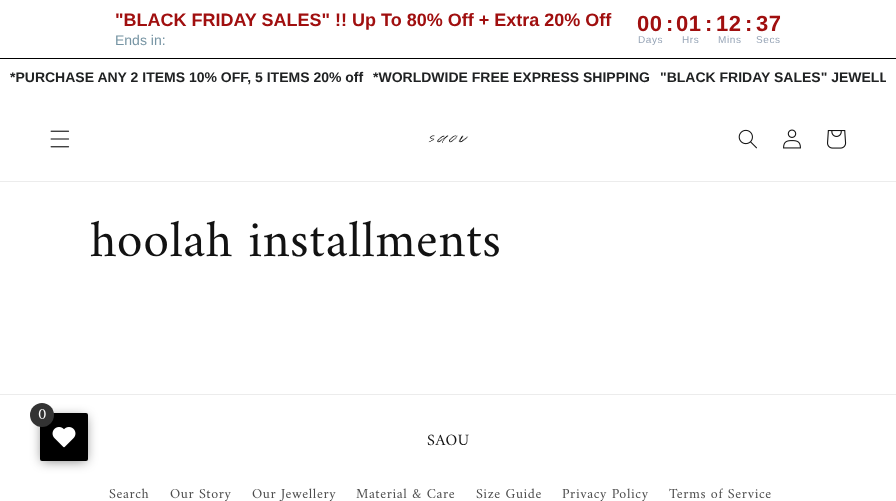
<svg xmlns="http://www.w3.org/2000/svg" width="896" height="501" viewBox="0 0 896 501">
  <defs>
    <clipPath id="clip1"><rect x="10" y="69" width="876" height="17"/></clipPath>
    <filter id="blur1" x="-50%" y="-200%" width="200%" height="500%"><feGaussianBlur stdDeviation="6"/></filter>
  </defs>
  <rect width="100%" height="100%" fill="#ffffff"/>
  <rect x="0" y="58" width="896" height="1" fill="#000000"/>
  <text x="115" y="26" font-family="Liberation Sans" font-size="18" font-weight="bold" fill="#a00f0f">"BLACK FRIDAY SALES" !! Up To 80% Off + Extra 20% Off</text>
  <text x="115" y="45" font-family="Liberation Sans" font-size="14" fill="#7694a3">Ends in:</text>
  <text x="637" y="31" font-family="Liberation Sans" font-size="22" font-weight="bold" letter-spacing="0.6" fill="#a00f0f">00</text>
  <text x="666" y="31" font-family="Liberation Sans" font-size="22" font-weight="bold" letter-spacing="0.6" fill="#a00f0f">:</text>
  <text x="676" y="31" font-family="Liberation Sans" font-size="22" font-weight="bold" letter-spacing="0.6" fill="#a00f0f">01</text>
  <text x="705" y="31" font-family="Liberation Sans" font-size="22" font-weight="bold" letter-spacing="0.6" fill="#a00f0f">:</text>
  <text x="716" y="31" font-family="Liberation Sans" font-size="22" font-weight="bold" letter-spacing="0.6" fill="#a00f0f">12</text>
  <text x="745" y="31" font-family="Liberation Sans" font-size="22" font-weight="bold" letter-spacing="0.6" fill="#a00f0f">:</text>
  <text x="756" y="31" font-family="Liberation Sans" font-size="22" font-weight="bold" letter-spacing="0.6" fill="#a00f0f">37</text>
  <text x="638" y="43" font-family="Liberation Sans" font-size="10" letter-spacing="0.6" fill="#96a4b6">Days</text>
  <text x="682" y="43" font-family="Liberation Sans" font-size="10" letter-spacing="0.6" fill="#96a4b6">Hrs</text>
  <text x="718" y="43" font-family="Liberation Sans" font-size="10" letter-spacing="0.6" fill="#96a4b6">Mins</text>
  <text x="756" y="43" font-family="Liberation Sans" font-size="10" letter-spacing="0.6" fill="#96a4b6">Secs</text>
  <text x="10" y="82" font-family="Liberation Sans" font-size="14" font-weight="bold" fill="#202223">*PURCHASE ANY 2 ITEMS 10% OFF, 5 ITEMS 20% off</text>
  <text x="373" y="82" font-family="Liberation Sans" font-size="14" font-weight="bold" fill="#202223">*WORLDWIDE FREE EXPRESS SHIPPING</text>
  <g clip-path="url(#clip1)">
    <text x="660" y="82" font-family="Liberation Sans" font-size="14" font-weight="bold" fill="#202223">"BLACK FRIDAY SALES" JEWELL</text>
  </g>
  <rect x="0" y="181" width="896" height="1" fill="#ececec"/>
  <image x="50" y="130" width="20" height="18" href="img1.png"/>
  <image x="428" y="135" width="41" height="8" href="img2.png"/>
  <image x="738" y="129" width="19" height="20" href="img3.png"/>
  <image x="783" y="129" width="18" height="20" href="img4.png"/>
  <image x="827" y="130" width="20" height="19" href="img5.png"/>
  <text x="90" y="256" font-family="Amiri" font-size="52" letter-spacing="0.6" fill="#121212">hoolah installments</text>
  <rect x="42" y="417" width="44" height="44" fill="#000000" fill-opacity="0.5" filter="url(#blur1)"/>
  <rect x="40" y="413" width="48" height="48" rx="2" fill="#000000"/>
  <circle cx="42" cy="415" r="12" fill="#333333"/>
  <text x="38" y="419" font-family="Amiri" font-size="16" letter-spacing="0.6" fill="#ffffff">0</text>
  <image x="52" y="427" width="24" height="21" href="img6.png"/>
  <rect x="0" y="394" width="896" height="1" fill="#ececec"/>
  <text x="427" y="445" font-family="Amiri" font-size="16" letter-spacing="0.6" fill="#121212">SAOU</text>
  <text x="109" y="498" font-family="Amiri" font-size="14" letter-spacing="0.6" fill="#4d4d4d">Search</text>
  <text x="170" y="498" font-family="Amiri" font-size="14" letter-spacing="0.6" fill="#4d4d4d">Our Story</text>
  <text x="252" y="498" font-family="Amiri" font-size="14" letter-spacing="0.6" fill="#4d4d4d">Our Jewellery</text>
  <text x="356" y="498" font-family="Amiri" font-size="14" letter-spacing="0.6" fill="#4d4d4d">Material &amp; Care</text>
  <text x="476" y="498" font-family="Amiri" font-size="14" letter-spacing="0.6" fill="#4d4d4d">Size Guide</text>
  <text x="562" y="498" font-family="Amiri" font-size="14" letter-spacing="0.6" fill="#4d4d4d">Privacy Policy</text>
  <text x="669" y="498" font-family="Amiri" font-size="14" letter-spacing="0.6" fill="#4d4d4d">Terms of Service</text>
</svg>
